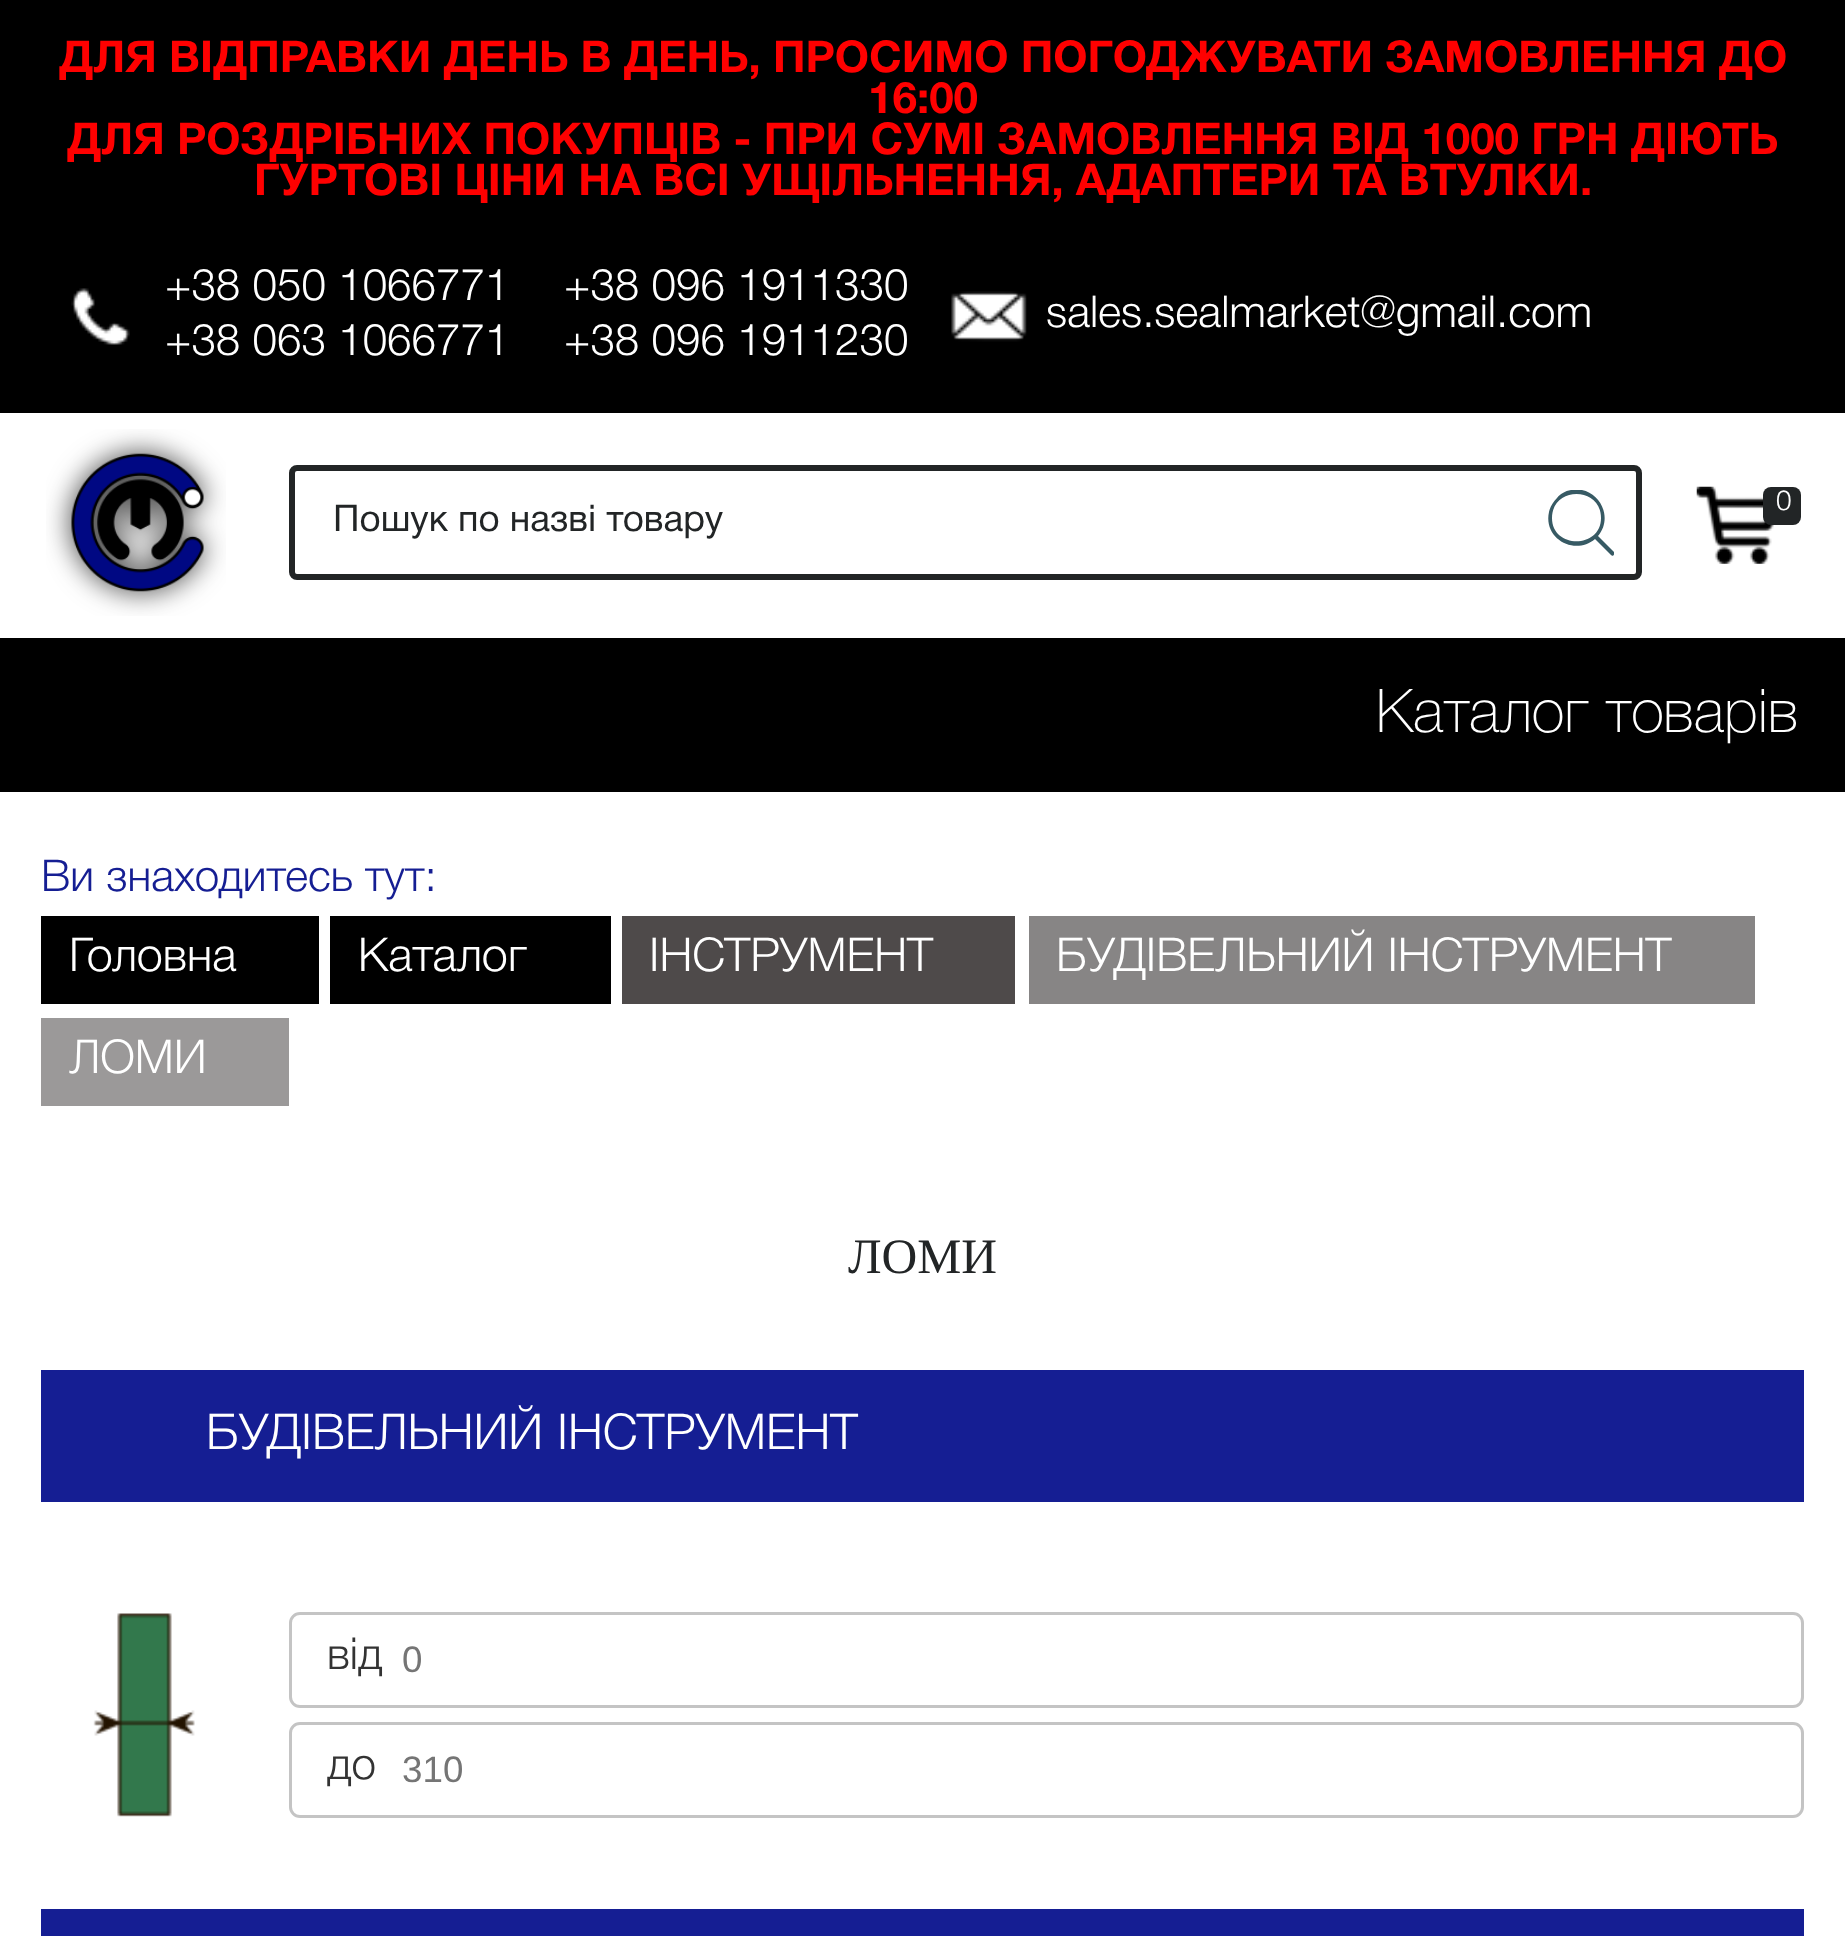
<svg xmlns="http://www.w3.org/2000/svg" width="1845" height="1936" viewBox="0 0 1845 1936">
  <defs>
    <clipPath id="clip1"><rect x="1548" y="490" width="66" height="66"/></clipPath>
  </defs>
  <rect width="100%" height="100%" fill="#ffffff"/>
  <rect x="0" y="0" width="1845" height="413" fill="#000000"/>
  <text x="59" y="72" font-family="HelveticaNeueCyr" font-size="44" font-weight="bold" fill="#ff0000">ДЛЯ ВІДПРАВКИ ДЕНЬ В ДЕНЬ, ПРОСИМО ПОГОДЖУВАТИ ЗАМОВЛЕННЯ ДО</text>
  <text x="868" y="113" font-family="HelveticaNeueCyr" font-size="44" font-weight="bold" fill="#ff0000">16:00</text>
  <text x="67" y="154" font-family="HelveticaNeueCyr" font-size="44" font-weight="bold" fill="#ff0000">ДЛЯ РОЗДРІБНИХ ПОКУПЦІВ - ПРИ СУМІ ЗАМОВЛЕННЯ ВІД 1000 ГРН ДІЮТЬ</text>
  <text x="254" y="195" font-family="HelveticaNeueCyr" font-size="44" font-weight="bold" fill="#ff0000">ГУРТОВІ ЦІНИ НА ВСІ УЩІЛЬНЕННЯ, АДАПТЕРИ ТА ВТУЛКИ.</text>
  <image x="71" y="288" width="59" height="57" href="img1.png"/>
  <text x="165" y="300" font-family="HelveticaNeueCyr" font-size="44" font-weight="300" fill="#ffffff">+38 050 1066771</text>
  <text x="165" y="355" font-family="HelveticaNeueCyr" font-size="44" font-weight="300" fill="#ffffff">+38 063 1066771</text>
  <text x="564" y="300" font-family="HelveticaNeueCyr" font-size="44" font-weight="300" fill="#ffffff">+38 096 1911330</text>
  <text x="564" y="355" font-family="HelveticaNeueCyr" font-size="44" font-weight="300" fill="#ffffff">+38 096 1911230</text>
  <image x="951" y="291" width="76" height="51" href="img2.png"/>
  <text x="1046" y="327" font-family="HelveticaNeueCyr" font-size="44" font-weight="300" fill="#ffffff">sales.sealmarket@gmail.com</text>
  <image x="46" y="429" width="180" height="187" href="img3.png"/>
  <image x="1696" y="486" width="78" height="78" href="img4.png"/>
  <rect x="1763" y="487" width="38" height="38" rx="8" fill="#222526"/>
  <text x="1776" y="510" font-family="HelveticaNeueCyr" font-size="28" font-weight="300" fill="#ffffff">0</text>
  <rect x="292" y="468" width="1347" height="109" rx="5" fill="none" stroke="#222526" stroke-width="6"/>
  <text x="333" y="531" font-family="HelveticaNeueCyr" font-size="36.75" fill="#222526">Пошук по назві товару</text>
  <g clip-path="url(#clip1)">
    <path d="M1614 552L1598 536C1615 516 1597 485 1571 490C1565 491 1560 494 1557 498C1553 502 1550 507 1549 512C1543 539 1575 556 1595 539L1611 555C1613 557 1615 554 1614 552ZM1552 518C1552 486 1601 486 1601 518C1601 549 1552 549 1552 518Z" fill="#375a64"/>
  </g>
  <rect x="0" y="638" width="1845" height="154" fill="#000000"/>
  <text x="1376" y="732" font-family="HelveticaNeueCyr" font-size="60.5" font-weight="100" fill="#ffffff">Каталог товарів</text>
  <text x="41" y="891" font-family="HelveticaNeueCyr" font-size="44" font-weight="300" fill="#151e93">Ви знаходитесь тут:</text>
  <rect x="41" y="916" width="278" height="88" fill="#000000"/>
  <text x="69" y="971" font-family="HelveticaNeueCyr" font-size="46.75" font-weight="300" fill="#ffffff">Головна</text>
  <rect x="330" y="916" width="281" height="88" fill="#000000"/>
  <text x="358" y="971" font-family="HelveticaNeueCyr" font-size="46.75" font-weight="300" fill="#ffffff">Каталог</text>
  <rect x="622" y="916" width="393" height="88" fill="#4e4a4a"/>
  <text x="649" y="971" font-family="HelveticaNeueCyr" font-size="46.75" font-weight="300" fill="#ffffff">ІНСТРУМЕНТ</text>
  <rect x="1029" y="916" width="726" height="88" fill="#878585"/>
  <text x="1056" y="971" font-family="HelveticaNeueCyr" font-size="46.75" font-weight="300" fill="#ffffff">БУДІВЕЛЬНИЙ ІНСТРУМЕНТ</text>
  <rect x="41" y="1018" width="248" height="88" fill="#9b9999"/>
  <text x="69" y="1073" font-family="HelveticaNeueCyr" font-size="46.75" font-weight="300" fill="#ffffff">ЛОМИ</text>
  <text x="848" y="1273" font-family="Liberation Serif" font-size="49.5" fill="#222526">ЛОМИ</text>
  <rect x="41" y="1370" width="1763" height="132" fill="#151e93"/>
  <text x="206" y="1449" font-family="HelveticaNeueCyr" font-size="49.5" font-weight="300" fill="#ffffff">БУДІВЕЛЬНИЙ ІНСТРУМЕНТ</text>
  <image x="93" y="1613" width="102" height="204" href="img5.png"/>
  <text x="327" y="1669" font-family="HelveticaNeueCyr" font-size="44" font-weight="300" fill="#333333">від</text>
  <rect x="290.5" y="1613.5" width="1512" height="93" rx="9.5" fill="none" stroke="#c4c4c4" stroke-width="3"/>
  <text x="402" y="1672" font-family="Liberation Sans" font-size="36.75" fill="#757575">0</text>
  <text x="327" y="1779" font-family="HelveticaNeueCyr" font-size="44" font-weight="300" fill="#333333">до</text>
  <rect x="290.5" y="1723.5" width="1512" height="93" rx="9.5" fill="none" stroke="#c4c4c4" stroke-width="3"/>
  <text x="402" y="1782" font-family="Liberation Sans" font-size="36.75" fill="#757575">310</text>
  <rect x="41" y="1909" width="1763" height="27" fill="#151e93"/>
</svg>
